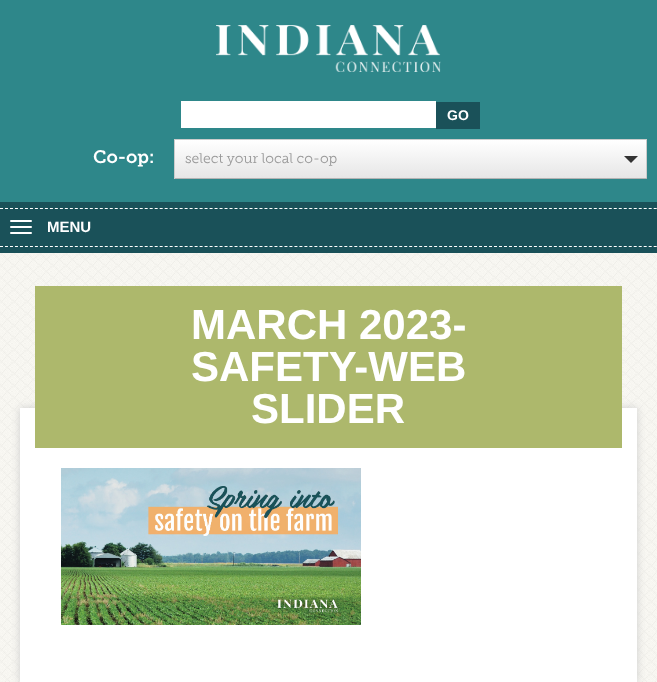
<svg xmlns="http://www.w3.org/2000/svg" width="657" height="682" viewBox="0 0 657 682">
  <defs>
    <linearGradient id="g1" gradientUnits="userSpaceOnUse" x1="411" y1="140" x2="411" y2="178"><stop offset="0" stop-color="#ffffff"/><stop offset="1" stop-color="#e6e6e6"/></linearGradient>
    <filter id="blur1" x="-50%" y="-200%" width="200%" height="500%"><feGaussianBlur stdDeviation="4"/></filter>
  </defs>
  <rect width="100%" height="100%" fill="#2e878a"/>
  <image x="216" y="25" width="225" height="47" href="img1.png"/>
  <rect x="181" y="101" width="255" height="27" fill="#ffffff"/>
  <rect x="436" y="102" width="44" height="27" fill="#1a5159"/>
  <text x="447" y="120" font-family="Liberation Sans" font-size="14" font-weight="bold" fill="#ffffff">GO</text>
  <text x="93" y="163" font-family="'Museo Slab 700'" font-size="18" font-weight="600" fill="#ffffff">Co-op:</text>
  <rect x="175" y="140" width="471" height="38" fill="url(#g1)"/>
  <rect x="174" y="139" width="473" height="1" fill="#cccccc"/>
  <rect x="646" y="139" width="1" height="40" fill="#cccccc"/>
  <rect x="174" y="178" width="473" height="1" fill="#b3b3b3"/>
  <rect x="174" y="139" width="1" height="40" fill="#cccccc"/>
  <text x="185" y="163" font-family="'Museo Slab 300'" font-size="14" font-weight="300" fill="#999999">select your local co-op</text>
  <path d="M624 156H638L631 163Z" fill="#333333"/>
  <rect x="0" y="202" width="657" height="51" fill="#1a5159"/>
  <path d="M0 208.5H657" fill="none" stroke="#ffffff" stroke-dasharray="3 1.99"/>
  <rect x="10" y="220" width="22" height="2" rx="1" fill="#ffffff"/>
  <rect x="10" y="226" width="22" height="2" rx="1" fill="#ffffff"/>
  <rect x="10" y="232" width="22" height="2" rx="1" fill="#ffffff"/>
  <text x="47" y="232" font-family="Liberation Sans" font-size="15" font-weight="bold" fill="#ffffff">MENU</text>
  <path d="M0 246.5H657" fill="none" stroke="#ffffff" stroke-dasharray="3 1.99"/>
  <image x="0" y="253" width="657" height="429" href="img2.png"/>
  <rect x="20" y="408" width="617" height="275" fill="#cccccc" filter="url(#blur1)"/>
  <rect x="20" y="408" width="617" height="274" fill="#ffffff"/>
  <rect x="35" y="286" width="587" height="162" fill="#adb86c"/>
  <text x="191" y="339" font-family="Liberation Sans" font-size="42" font-weight="bold" fill="#ffffff">MARCH 2023-</text>
  <text x="191" y="381" font-family="Liberation Sans" font-size="42" font-weight="bold" fill="#ffffff">SAFETY-WEB</text>
  <text x="251" y="423" font-family="Liberation Sans" font-size="42" font-weight="bold" fill="#ffffff">SLIDER</text>
  <image x="61" y="468" width="300" height="157" href="img3.png"/>
</svg>
